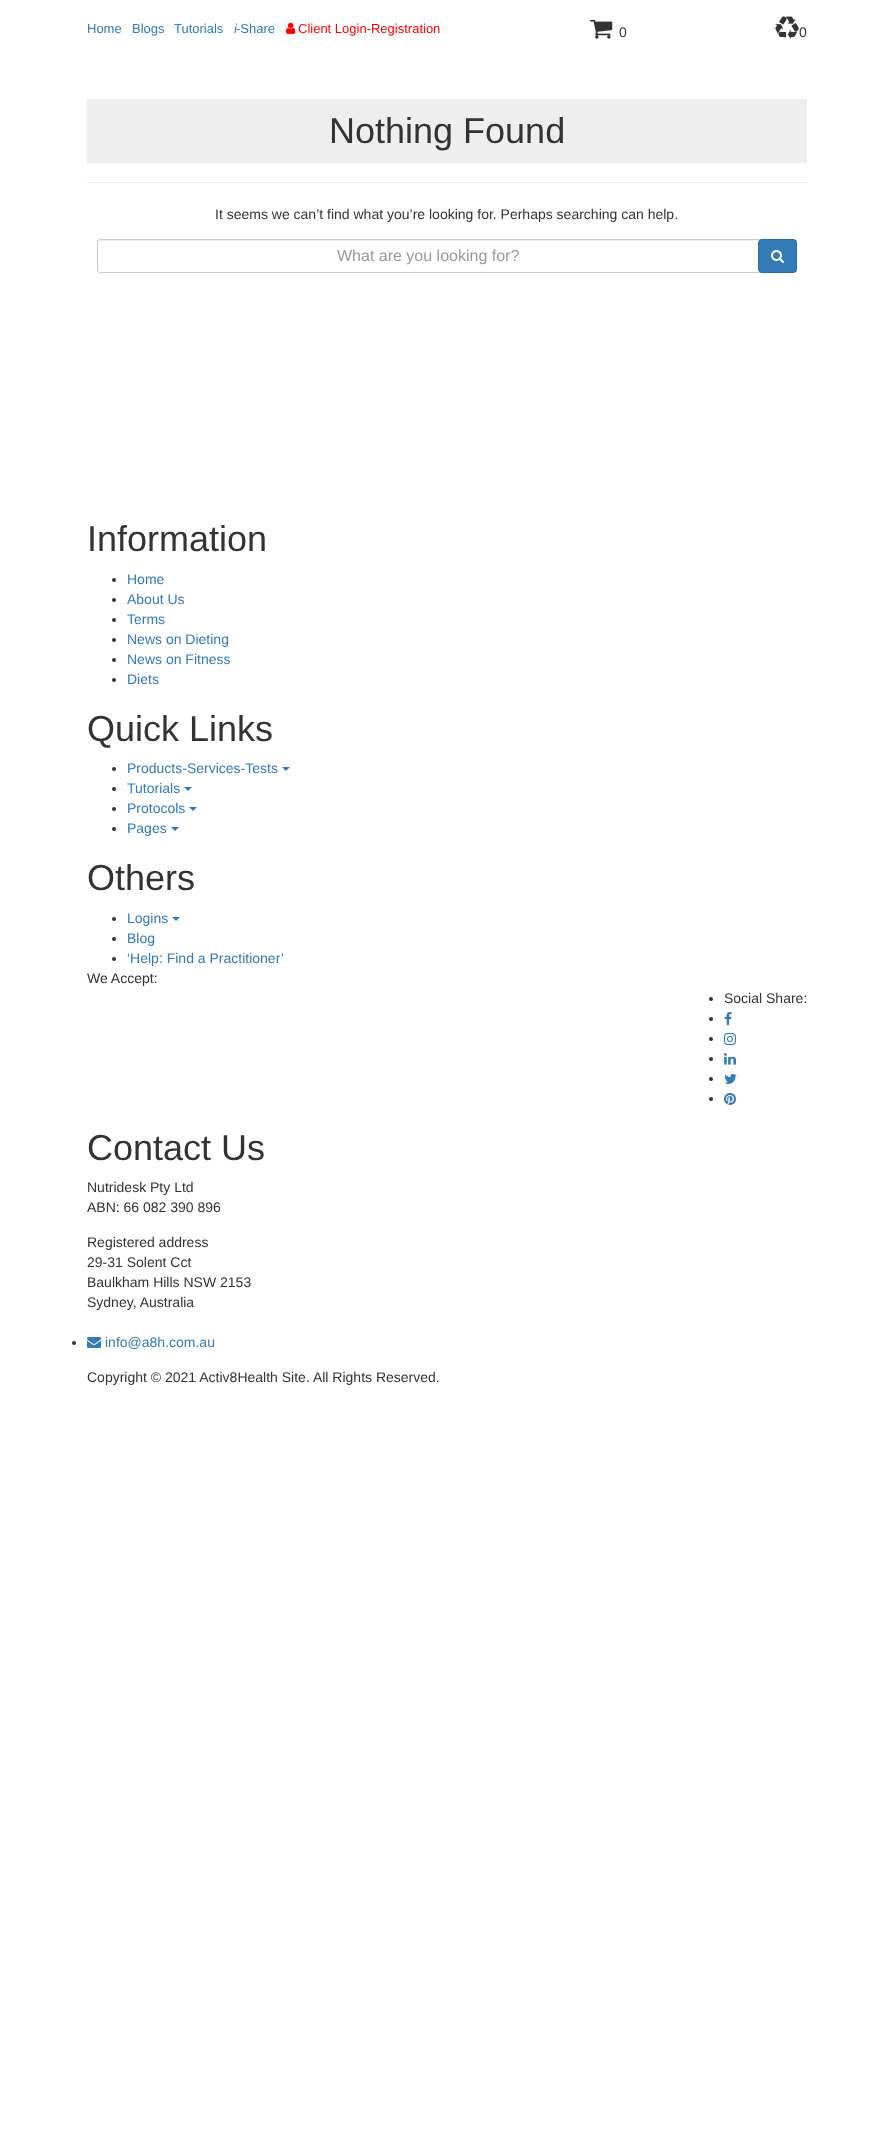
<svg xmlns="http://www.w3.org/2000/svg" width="894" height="2145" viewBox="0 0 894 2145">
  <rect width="100%" height="100%" fill="#ffffff"/>
  <text x="87" y="33" font-family="Liberation Sans" font-size="13" fill="#337ab7">Home</text>
  <text x="132" y="33" font-family="Liberation Sans" font-size="13" fill="#337ab7">Blogs</text>
  <text x="174" y="33" font-family="Liberation Sans" font-size="13" fill="#337ab7">Tutorials</text>
  <text x="234" y="33" font-family="Liberation Sans" font-size="13" font-style="italic" fill="#337ab7">i</text>
  <text x="236" y="33" font-family="Liberation Sans" font-size="13" fill="#337ab7">-Share</text>
  <image x="286" y="22" width="10" height="12" href="img1.png"/>
  <text x="298" y="33" font-family="Liberation Sans" font-size="13" fill="#fe0000">Client Login-Registration</text>
  <image x="590" y="19" width="23" height="20" href="img2.png"/>
  <text x="619" y="37" font-family="Liberation Sans" font-size="14" fill="#333333">0</text>
  <image x="775" y="16" width="24" height="24" href="img3.png"/>
  <text x="799" y="37" font-family="Liberation Sans" font-size="14" fill="#333333">0</text>
  <rect x="87" y="182" width="720" height="1" fill="#eeeeee"/>
  <rect x="87" y="99" width="720" height="64" fill="#eeeeee"/>
  <text x="329" y="143" font-family="Liberation Sans" font-size="36" fill="#333333">Nothing Found</text>
  <text x="215" y="219" font-family="Liberation Sans" font-size="14" fill="#333333">It seems we can’t find what you’re looking for. Perhaps searching can help.</text>
  <path d="M100 241H794C795 241 796 242 796 243C796 242 796 240 794 240H100C98 240 98 242 98 243C98 242 99 241 100 241Z" fill="#ececec"/>
  <rect x="97.5" y="239.5" width="699" height="33" rx="2.5" fill="none" stroke="#cccccc"/>
  <text x="337" y="261" font-family="Liberation Sans" font-size="16" fill="#999999">What are you looking for?</text>
  <rect x="758.5" y="239.5" width="38" height="33" rx="3.5" fill="#337ab7" stroke="#2e6da4"/>
  <image x="771" y="250" width="13" height="13" href="img4.png"/>
  <text x="87" y="551" font-family="Liberation Sans" font-size="36" fill="#333333">Information</text>
  <circle cx="114" cy="580" r="2" fill="#333333"/>
  <text x="127" y="584" font-family="Liberation Sans" font-size="14" fill="#337ab7">Home</text>
  <circle cx="114" cy="600" r="2" fill="#333333"/>
  <text x="127" y="604" font-family="Liberation Sans" font-size="14" fill="#337ab7">About Us</text>
  <circle cx="114" cy="620" r="2" fill="#333333"/>
  <text x="127" y="624" font-family="Liberation Sans" font-size="14" fill="#337ab7">Terms</text>
  <circle cx="114" cy="640" r="2" fill="#333333"/>
  <text x="127" y="644" font-family="Liberation Sans" font-size="14" fill="#337ab7">News on Dieting</text>
  <circle cx="114" cy="660" r="2" fill="#333333"/>
  <text x="127" y="664" font-family="Liberation Sans" font-size="14" fill="#337ab7">News on Fitness</text>
  <circle cx="114" cy="680" r="2" fill="#333333"/>
  <text x="127" y="684" font-family="Liberation Sans" font-size="14" fill="#337ab7">Diets</text>
  <text x="87" y="741" font-family="Liberation Sans" font-size="36" fill="#333333">Quick Links</text>
  <circle cx="114" cy="769" r="2" fill="#333333"/>
  <text x="127" y="773" font-family="Liberation Sans" font-size="14" fill="#337ab7">Products-Services-Tests</text>
  <path d="M282 767H290L286 771Z" fill="#337ab7"/>
  <circle cx="114" cy="789" r="2" fill="#333333"/>
  <text x="127" y="793" font-family="Liberation Sans" font-size="14" fill="#337ab7">Tutorials</text>
  <path d="M184 787H192L188 791Z" fill="#337ab7"/>
  <circle cx="114" cy="809" r="2" fill="#333333"/>
  <text x="127" y="813" font-family="Liberation Sans" font-size="14" fill="#337ab7">Protocols</text>
  <path d="M189 807H197L193 811Z" fill="#337ab7"/>
  <circle cx="114" cy="829" r="2" fill="#333333"/>
  <text x="127" y="833" font-family="Liberation Sans" font-size="14" fill="#337ab7">Pages</text>
  <path d="M171 827H179L175 831Z" fill="#337ab7"/>
  <text x="87" y="890" font-family="Liberation Sans" font-size="36" fill="#333333">Others</text>
  <circle cx="114" cy="919" r="2" fill="#333333"/>
  <text x="127" y="923" font-family="Liberation Sans" font-size="14" fill="#337ab7">Logins</text>
  <path d="M172 917H180L176 921Z" fill="#337ab7"/>
  <circle cx="114" cy="939" r="2" fill="#333333"/>
  <text x="127" y="943" font-family="Liberation Sans" font-size="14" fill="#337ab7">Blog</text>
  <circle cx="114" cy="959" r="2" fill="#333333"/>
  <text x="127" y="963" font-family="Liberation Sans" font-size="14" fill="#337ab7">‘Help: Find a Practitioner’</text>
  <text x="87" y="983" font-family="Liberation Sans" font-size="14" fill="#333333">We Accept:</text>
  <circle cx="711" cy="999" r="2" fill="#333333"/>
  <text x="724" y="1003" font-family="Liberation Sans" font-size="14" fill="#333333">Social Share:</text>
  <circle cx="711" cy="1019" r="2" fill="#333333"/>
  <image x="724" y="1012" width="8" height="13" href="img5.png"/>
  <circle cx="711" cy="1039" r="2" fill="#333333"/>
  <image x="724" y="1033" width="12" height="12" href="img6.png"/>
  <circle cx="711" cy="1059" r="2" fill="#333333"/>
  <image x="724" y="1053" width="12" height="12" href="img7.png"/>
  <circle cx="711" cy="1079" r="2" fill="#333333"/>
  <image x="724" y="1074" width="13" height="10" href="img8.png"/>
  <circle cx="711" cy="1099" r="2" fill="#333333"/>
  <image x="724" y="1093" width="12" height="12" href="img9.png"/>
  <text x="87" y="1160" font-family="Liberation Sans" font-size="36" fill="#333333">Contact Us</text>
  <text x="87" y="1192" font-family="Liberation Sans" font-size="14" fill="#333333">Nutridesk Pty Ltd</text>
  <text x="87" y="1212" font-family="Liberation Sans" font-size="14" fill="#333333">ABN: 66 082 390 896</text>
  <text x="87" y="1247" font-family="Liberation Sans" font-size="14" fill="#333333">Registered address</text>
  <text x="87" y="1267" font-family="Liberation Sans" font-size="14" fill="#333333">29-31 Solent Cct</text>
  <text x="87" y="1287" font-family="Liberation Sans" font-size="14" fill="#333333">Baulkham Hills NSW 2153</text>
  <text x="87" y="1307" font-family="Liberation Sans" font-size="14" fill="#333333">Sydney, Australia</text>
  <circle cx="74" cy="1343" r="2" fill="#333333"/>
  <image x="87" y="1337" width="14" height="11" href="img10.png"/>
  <text x="105" y="1347" font-family="Liberation Sans" font-size="14" fill="#337ab7">info@a8h.com.au</text>
  <text x="87" y="1382" font-family="Liberation Sans" font-size="14" fill="#333333">Copyright © 2021 Activ8Health Site. All Rights Reserved.</text>
</svg>
